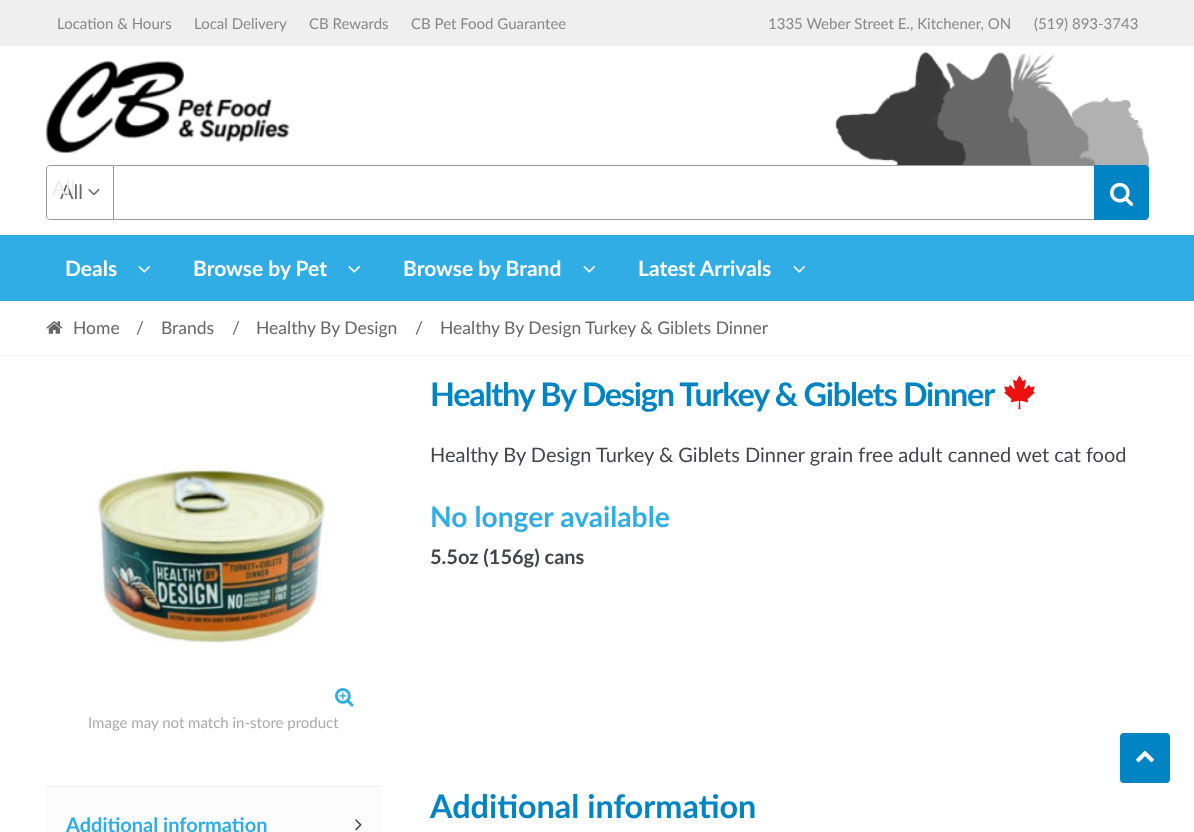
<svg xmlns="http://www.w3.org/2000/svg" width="1194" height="832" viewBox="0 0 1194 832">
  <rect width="100%" height="100%" fill="#ffffff"/>
  <image x="835" y="52" width="314" height="117" href="img1.png"/>
  <rect x="0" y="0" width="1194" height="46" fill="#efefef"/>
  <text x="57" y="29" font-family="Lato" font-size="15" fill="#888888">Location &amp; Hours</text>
  <text x="194" y="29" font-family="Lato" font-size="15" fill="#888888">Local Delivery</text>
  <text x="309" y="29" font-family="Lato" font-size="15" fill="#888888">CB Rewards</text>
  <text x="411" y="29" font-family="Lato" font-size="15" fill="#888888">CB Pet Food Guarantee</text>
  <text x="768" y="29" font-family="Lato" font-size="15" fill="#888888">1335 Weber Street E., Kitchener, ON</text>
  <text x="1034" y="29" font-family="Lato" font-size="15" fill="#888888">(519) 893-3743</text>
  <image x="46" y="61" width="244" height="92" href="img2.png"/>
  <path d="M50 165.5H113.5V219.5H50C48 219.5 46.5 218 46.5 216V169C46.5 167 48 165.5 50 165.5Z" fill="none" stroke="#999999"/>
  <text x="60" y="199" font-family="Lato" font-size="20" fill="#666666">All</text>
  <text x="52" y="195" font-family="Lato" font-size="20" fill="#ebebeb">All</text>
  <image x="88" y="189" width="12" height="7" href="img3.png"/>
  <rect x="896" y="166" width="198" height="3" fill="#ffffff"/>
  <rect x="114" y="165" width="980" height="1" fill="#999999"/>
  <rect x="114" y="219" width="980" height="1" fill="#999999"/>
  <path d="M1094 165H1145C1147 165 1149 167 1149 169V216C1149 218 1147 220 1145 220H1094Z" fill="#0084c3"/>
  <image x="1110" y="182" width="24" height="25" href="img4.png"/>
  <rect x="0" y="235" width="1194" height="66" fill="#31ade6"/>
  <text x="65" y="276" font-family="Lato" font-size="21" font-weight="bold" fill="#ffffff">Deals</text>
  <image x="138" y="266" width="12" height="7" href="img5.png"/>
  <text x="193" y="276" font-family="Lato" font-size="21" font-weight="bold" fill="#ffffff">Browse by Pet</text>
  <image x="348" y="266" width="12" height="7" href="img5.png"/>
  <text x="403" y="276" font-family="Lato" font-size="21" font-weight="bold" fill="#ffffff">Browse by Brand</text>
  <image x="583" y="266" width="12" height="7" href="img5.png"/>
  <text x="638" y="276" font-family="Lato" font-size="21" font-weight="bold" fill="#ffffff">Latest Arrivals</text>
  <image x="793" y="266" width="12" height="7" href="img5.png"/>
  <rect x="0" y="355" width="1194" height="1" fill="#f5f5f5"/>
  <image x="46" y="321" width="17" height="13" href="img6.png"/>
  <text x="73" y="334" font-family="Lato" font-size="17.5" fill="#666666">Home</text>
  <text x="136" y="334" font-family="Lato" font-size="17.5" fill="#666666">/</text>
  <text x="161" y="334" font-family="Lato" font-size="17.5" fill="#666666">Brands</text>
  <text x="232" y="334" font-family="Lato" font-size="17.5" fill="#666666">/</text>
  <text x="256" y="334" font-family="Lato" font-size="17.5" fill="#666666">Healthy By Design</text>
  <text x="415" y="334" font-family="Lato" font-size="17.5" fill="#666666">/</text>
  <text x="440" y="334" font-family="Lato" font-size="17.5" fill="#666666">Healthy By Design Turkey &amp; Giblets Dinner</text>
  <text x="430" y="406" font-family="Lato" font-size="32.4" font-weight="bold" letter-spacing="-1.25" fill="#0084c3">Healthy By Design Turkey &amp; Giblets Dinner</text>
  <image x="1004" y="375" width="31" height="35" href="img7.png"/>
  <text x="430" y="462" font-family="Lato" font-size="20" fill="#43454b">Healthy By Design Turkey &amp; Giblets Dinner grain free adult canned wet cat food</text>
  <text x="430" y="527" font-family="Lato" font-size="28.25" font-weight="bold" fill="#31ade6">No longer available</text>
  <text x="430" y="564" font-family="Lato" font-size="20" font-weight="bold" fill="#43454b">5.5oz (156g) cans</text>
  <image x="335" y="688" width="19" height="19" href="img8.png"/>
  <image x="93" y="463" width="234" height="180" href="img9.png"/>
  <text x="88" y="728" font-family="Lato" font-size="15" fill="#aaaaaa">Image may not match in-store product</text>
  <text x="430" y="818" font-family="Lato" font-size="32.4" font-weight="bold" fill="#0084c3">Additional information</text>
  <rect x="46" y="786" width="335" height="1" fill="#eeeeee"/>
  <rect x="46" y="788" width="335" height="44" fill="#fcfcfc"/>
  <text x="66" y="832" font-family="Lato" font-size="20" font-weight="bold" fill="#31ade6">Additional information</text>
  <image x="355" y="819" width="7" height="12" href="img10.png"/>
  <rect x="1120" y="733" width="50" height="50" rx="4" fill="#0084c3"/>
  <image x="1136" y="750" width="18" height="13" href="img11.png"/>
</svg>
